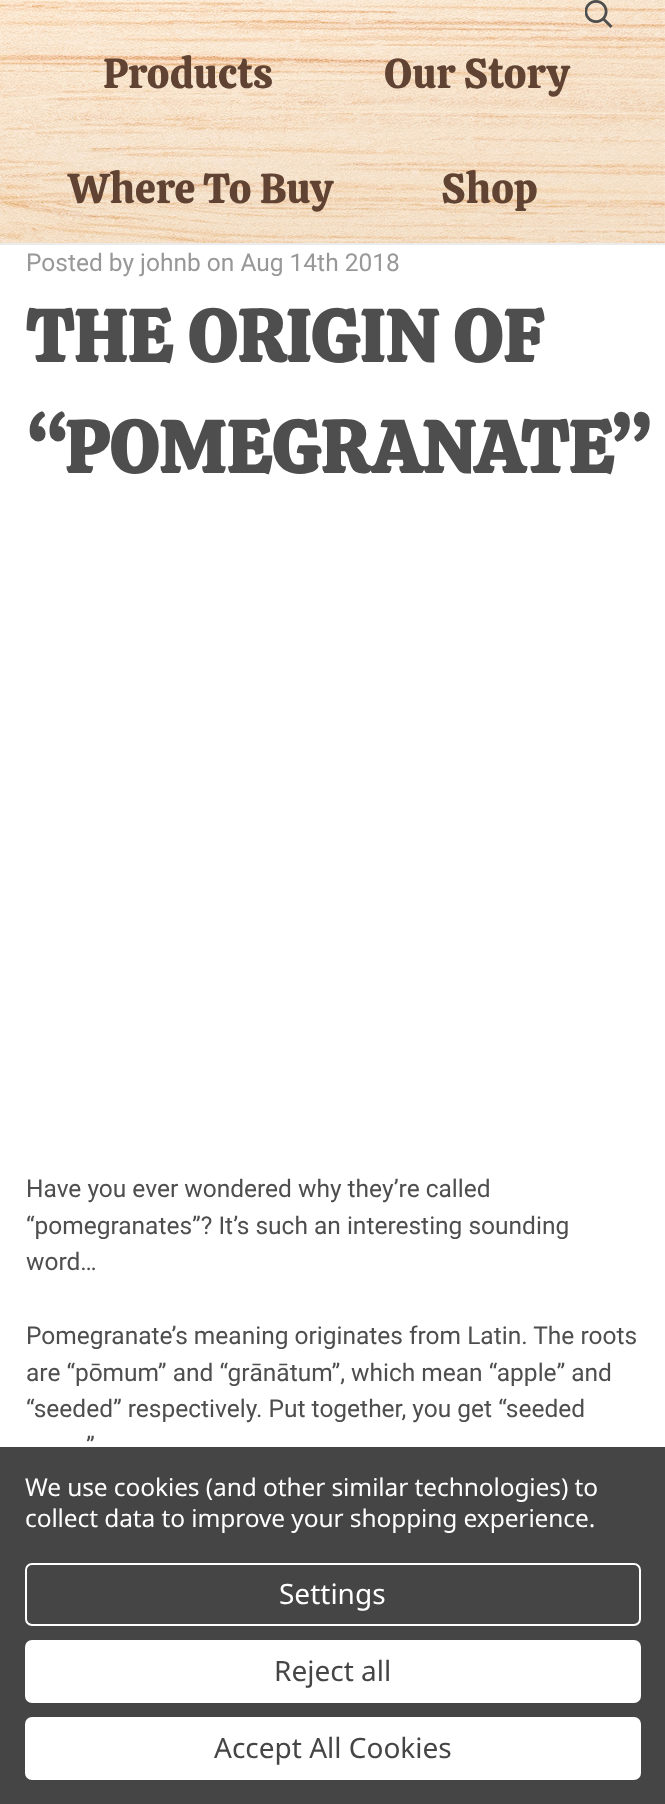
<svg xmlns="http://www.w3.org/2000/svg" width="665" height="1804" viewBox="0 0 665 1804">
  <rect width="100%" height="100%" fill="#ffffff"/>
  <image x="0" y="0" width="665" height="243" href="img1.png"/>
  <rect x="0" y="243" width="665" height="2" fill="#ebebeb"/>
  <image x="585" y="0" width="28" height="28" href="img2.png"/>
  <text x="103" y="88" font-family="Calistoga" font-size="42" fill="#604332">Products</text>
  <text x="384" y="88" font-family="Calistoga" font-size="42" fill="#604332">Our Story</text>
  <text x="68" y="203" font-family="Calistoga" font-size="42" fill="#604332">Where To Buy</text>
  <text x="441" y="203" font-family="Calistoga" font-size="42" fill="#604332">Shop</text>
  <text x="26" y="271" font-family="Roboto" font-size="24.5" fill="#989898">Posted by johnb on Aug 14th 2018</text>
  <text x="26" y="362" font-family="Calistoga" font-size="73.5" font-weight="bold" letter-spacing="0.5" fill="#4e4e4e">THE ORIGIN OF</text>
  <text x="26" y="473" font-family="Calistoga" font-size="73.5" font-weight="bold" letter-spacing="0.5" fill="#4e4e4e">“POMEGRANATE”</text>
  <text x="26" y="1197" font-family="Roboto" font-size="24.5" fill="#4e4e4e">Have you ever wondered why they’re called</text>
  <text x="26" y="1234" font-family="Roboto" font-size="24.5" fill="#4e4e4e">“pomegranates”? It’s such an interesting sounding</text>
  <text x="26" y="1270" font-family="Roboto" font-size="24.5" fill="#4e4e4e">word…</text>
  <text x="26" y="1344" font-family="Roboto" font-size="24.5" fill="#4e4e4e">Pomegranate’s meaning originates from Latin. The roots</text>
  <text x="26" y="1381" font-family="Roboto" font-size="24.5" fill="#4e4e4e">are “pōmum” and “grānātum”, which mean “apple” and</text>
  <text x="26" y="1417" font-family="Roboto" font-size="24.5" fill="#4e4e4e">“seeded” respectively. Put together, you get “seeded</text>
  <text x="86" y="1454" font-family="Roboto" font-size="24.5" fill="#4e4e4e">”</text>
  <rect x="0" y="1447" width="665" height="357" fill="#454545"/>
  <text x="25" y="1496" font-family="Noto Sans" font-size="24.5" letter-spacing="-0.1" fill="#ffffff">We use cookies (and other similar technologies) to</text>
  <text x="25" y="1527" font-family="Noto Sans" font-size="24.5" letter-spacing="-0.1" fill="#ffffff">collect data to improve your shopping experience.</text>
  <rect x="26" y="1564" width="614" height="61" rx="6" fill="none" stroke="#ffffff" stroke-width="2"/>
  <text x="279" y="1604" font-family="Noto Sans" font-size="28" fill="#ffffff">Settings</text>
  <rect x="25" y="1640" width="616" height="63" rx="7" fill="#ffffff"/>
  <text x="274" y="1681" font-family="Noto Sans" font-size="28" fill="#454545">Reject all</text>
  <rect x="25" y="1717" width="616" height="63" rx="7" fill="#ffffff"/>
  <text x="214" y="1758" font-family="Noto Sans" font-size="28" fill="#454545">Accept All Cookies</text>
</svg>
